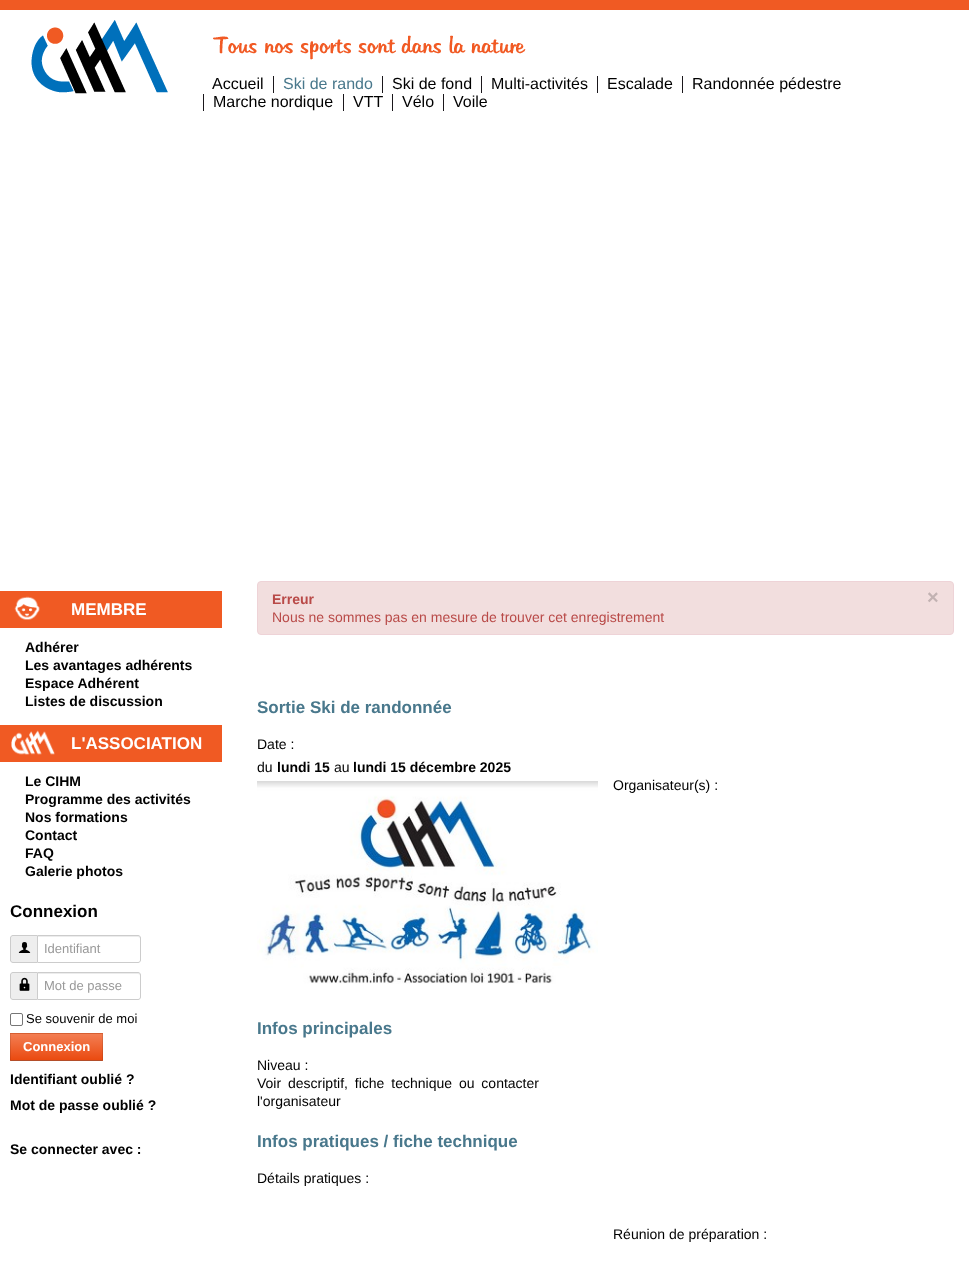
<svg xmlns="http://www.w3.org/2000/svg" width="969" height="1261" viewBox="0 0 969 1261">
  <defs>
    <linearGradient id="g1" gradientUnits="userSpaceOnUse" x1="57" y1="1034" x2="57" y2="1060"><stop offset="0" stop-color="#f37e53"/><stop offset="1" stop-color="#ea4a10"/></linearGradient>
  </defs>
  <rect width="100%" height="100%" fill="#f05a23"/>
  <rect x="0" y="10" width="969" height="106" fill="#ffffff"/>
  <image x="31" y="20" width="137" height="74" href="img1.png"/>
  <image x="213" y="35" width="313" height="25" href="img2.png"/>
  <text x="212" y="89" font-family="Liberation Sans" font-size="16" fill="#000000">Accueil</text>
  <rect x="273" y="76" width="1" height="17" fill="#1a171b"/>
  <text x="283" y="89" font-family="Liberation Sans" font-size="16" fill="#49788c">Ski de rando</text>
  <rect x="382" y="76" width="1" height="17" fill="#1a171b"/>
  <text x="392" y="89" font-family="Liberation Sans" font-size="16" fill="#000000">Ski de fond</text>
  <rect x="481" y="76" width="1" height="17" fill="#1a171b"/>
  <text x="491" y="89" font-family="Liberation Sans" font-size="16" fill="#000000">Multi-activités</text>
  <rect x="597" y="76" width="1" height="17" fill="#1a171b"/>
  <text x="607" y="89" font-family="Liberation Sans" font-size="16" fill="#000000">Escalade</text>
  <rect x="682" y="76" width="1" height="17" fill="#1a171b"/>
  <text x="692" y="89" font-family="Liberation Sans" font-size="16" fill="#000000">Randonnée pédestre</text>
  <rect x="203" y="94" width="1" height="17" fill="#1a171b"/>
  <text x="213" y="107" font-family="Liberation Sans" font-size="16" fill="#000000">Marche nordique</text>
  <rect x="343" y="94" width="1" height="17" fill="#1a171b"/>
  <text x="353" y="107" font-family="Liberation Sans" font-size="16" fill="#000000">VTT</text>
  <rect x="392" y="94" width="1" height="17" fill="#1a171b"/>
  <text x="402" y="107" font-family="Liberation Sans" font-size="16" fill="#000000">Vélo</text>
  <rect x="443" y="94" width="1" height="17" fill="#1a171b"/>
  <text x="453" y="107" font-family="Liberation Sans" font-size="16" fill="#000000">Voile</text>
  <rect x="0" y="116" width="969" height="1145" fill="#ffffff"/>
  <rect x="0" y="591" width="222" height="37" fill="#f05a23"/>
  <image x="14" y="596" width="26" height="24" href="img3.png"/>
  <text x="71" y="615" font-family="Liberation Sans" font-size="17" font-weight="bold" fill="#ffffff">MEMBRE</text>
  <text x="25" y="652" font-family="Liberation Sans" font-size="14" font-weight="bold" fill="#000000">Adhérer</text>
  <text x="25" y="670" font-family="Liberation Sans" font-size="14" font-weight="bold" fill="#000000">Les avantages adhérents</text>
  <text x="25" y="688" font-family="Liberation Sans" font-size="14" font-weight="bold" fill="#000000">Espace Adhérent</text>
  <text x="25" y="706" font-family="Liberation Sans" font-size="14" font-weight="bold" fill="#000000">Listes de discussion</text>
  <rect x="0" y="725" width="222" height="37" fill="#f05a23"/>
  <image x="11" y="730" width="44" height="25" href="img4.png"/>
  <text x="71" y="749" font-family="Liberation Sans" font-size="17" font-weight="bold" fill="#ffffff">L'ASSOCIATION</text>
  <text x="25" y="786" font-family="Liberation Sans" font-size="14" font-weight="bold" fill="#000000">Le CIHM</text>
  <text x="25" y="804" font-family="Liberation Sans" font-size="14" font-weight="bold" fill="#000000">Programme des activités</text>
  <text x="25" y="822" font-family="Liberation Sans" font-size="14" font-weight="bold" fill="#000000">Nos formations</text>
  <text x="25" y="840" font-family="Liberation Sans" font-size="14" font-weight="bold" fill="#000000">Contact</text>
  <text x="25" y="858" font-family="Liberation Sans" font-size="14" font-weight="bold" fill="#000000">FAQ</text>
  <text x="25" y="876" font-family="Liberation Sans" font-size="14" font-weight="bold" fill="#000000">Galerie photos</text>
  <text x="10" y="917" font-family="Liberation Sans" font-size="17" font-weight="bold" fill="#000000">Connexion</text>
  <path d="M13 935.5H37.5V962.5H13C11.5 962.5 10.5 961.5 10.5 960V938C10.5 936.5 11.5 935.5 13 935.5Z" fill="#eeeeee" stroke="#cccccc"/>
  <image x="18" y="942" width="13" height="11" href="img5.png"/>
  <path d="M37 935H138C139.5 935 141 936.5 141 938V960C141 961.5 139.5 963 138 963H37Z" fill="#ffffff"/>
  <path d="M38 937H138C139 937 140 938 140 939C140 938 140 936 138 936H38Z" fill="#ececec"/>
  <path d="M37.5 935.5H138C139.5 935.5 140.5 936.5 140.5 938V960C140.5 961.5 139.5 962.5 138 962.5H37.5Z" fill="none" stroke="#cccccc"/>
  <text x="44" y="953" font-family="Liberation Sans" font-size="13" fill="#999999">Identifiant</text>
  <path d="M13 972.5H37.5V999.5H13C11.5 999.5 10.5 998.5 10.5 997V975C10.5 973.5 11.5 972.5 13 972.5Z" fill="#eeeeee" stroke="#cccccc"/>
  <image x="19" y="977" width="11" height="14" href="img6.png"/>
  <path d="M37 972H138C139.5 972 141 973.5 141 975V997C141 998.5 139.5 1000 138 1000H37Z" fill="#ffffff"/>
  <path d="M38 974H138C139 974 140 975 140 976C140 975 140 973 138 973H38Z" fill="#ececec"/>
  <path d="M37.5 972.5H138C139.5 972.5 140.5 973.5 140.5 975V997C140.5 998.5 139.5 999.5 138 999.5H37.5Z" fill="none" stroke="#cccccc"/>
  <text x="44" y="990" font-family="Liberation Sans" font-size="13" fill="#999999">Mot de passe</text>
  <rect x="10.5" y="1013.5" width="12" height="12" rx="1.5" fill="none" stroke="#767676"/>
  <text x="26" y="1023" font-family="Liberation Sans" font-size="13" fill="#000000">Se souvenir de moi</text>
  <rect x="10" y="1033" width="93" height="28" fill="#ef6938"/>
  <rect x="10" y="1034" width="93" height="26" fill="url(#g1)"/>
  <path d="M10 1033H103L102 1034H11Z" fill="#d75f32"/>
  <path d="M103 1033V1061L102 1060V1034Z" fill="#000000" fill-opacity="0.1"/>
  <path d="M103 1061H10L11 1060H102Z" fill="#000000" fill-opacity="0.25"/>
  <path d="M10 1061V1033L11 1034V1060Z" fill="#000000" fill-opacity="0.1"/>
  <text x="23" y="1051" font-family="Liberation Sans" font-size="13" font-weight="bold" fill="#ffffff">Connexion</text>
  <text x="10" y="1084" font-family="Liberation Sans" font-size="14" font-weight="bold" fill="#000000">Identifiant oublié ?</text>
  <text x="10" y="1110" font-family="Liberation Sans" font-size="14" font-weight="bold" fill="#000000">Mot de passe oublié ?</text>
  <text x="10" y="1154" font-family="Liberation Sans" font-size="14" font-weight="bold" fill="#000000">Se connecter avec :</text>
  <rect x="257.5" y="581.5" width="696" height="53" rx="3.5" fill="#f2dede" stroke="#eed3d7"/>
  <text x="272" y="604" font-family="Liberation Sans" font-size="14" font-weight="bold" fill="#b94a48">Erreur</text>
  <text x="927" y="604" font-family="Liberation Sans" font-size="20" font-weight="bold" fill="#c2b2b2">×</text>
  <text x="272" y="622" font-family="Liberation Sans" font-size="14" fill="#b94a48">Nous ne sommes pas en mesure de trouver cet enregistrement</text>
  <text x="257" y="713" font-family="Liberation Sans" font-size="17" font-weight="bold" fill="#49788c">Sortie Ski de randonnée</text>
  <text x="257" y="749" font-family="Liberation Sans" font-size="14" fill="#000000">Date :</text>
  <text x="257" y="772" font-family="Liberation Sans" font-size="14" fill="#000000">du</text>
  <text x="277" y="772" font-family="Liberation Sans" font-size="14" font-weight="bold" fill="#000000">lundi 15</text>
  <text x="334" y="772" font-family="Liberation Sans" font-size="14" fill="#000000">au</text>
  <text x="353" y="772" font-family="Liberation Sans" font-size="14" font-weight="bold" fill="#000000">lundi 15 décembre 2025</text>
  <image x="257" y="781" width="341" height="203" href="img7.png"/>
  <text x="613" y="790" font-family="Liberation Sans" font-size="14" fill="#000000">Organisateur(s) :</text>
  <text x="257" y="1034" font-family="Liberation Sans" font-size="17" font-weight="bold" fill="#49788c">Infos principales</text>
  <text x="257" y="1070" font-family="Liberation Sans" font-size="14" fill="#000000">Niveau :</text>
  <text x="257" y="1088" word-spacing="3" font-family="Liberation Sans" font-size="14" fill="#000000">Voir descriptif, fiche technique ou contacter</text>
  <text x="257" y="1106" font-family="Liberation Sans" font-size="14" fill="#000000">l'organisateur</text>
  <text x="257" y="1147" font-family="Liberation Sans" font-size="17" font-weight="bold" fill="#49788c">Infos pratiques / fiche technique</text>
  <text x="257" y="1183" font-family="Liberation Sans" font-size="14" fill="#000000">Détails pratiques :</text>
  <text x="613" y="1239" font-family="Liberation Sans" font-size="14" fill="#000000">Réunion de préparation :</text>
</svg>
